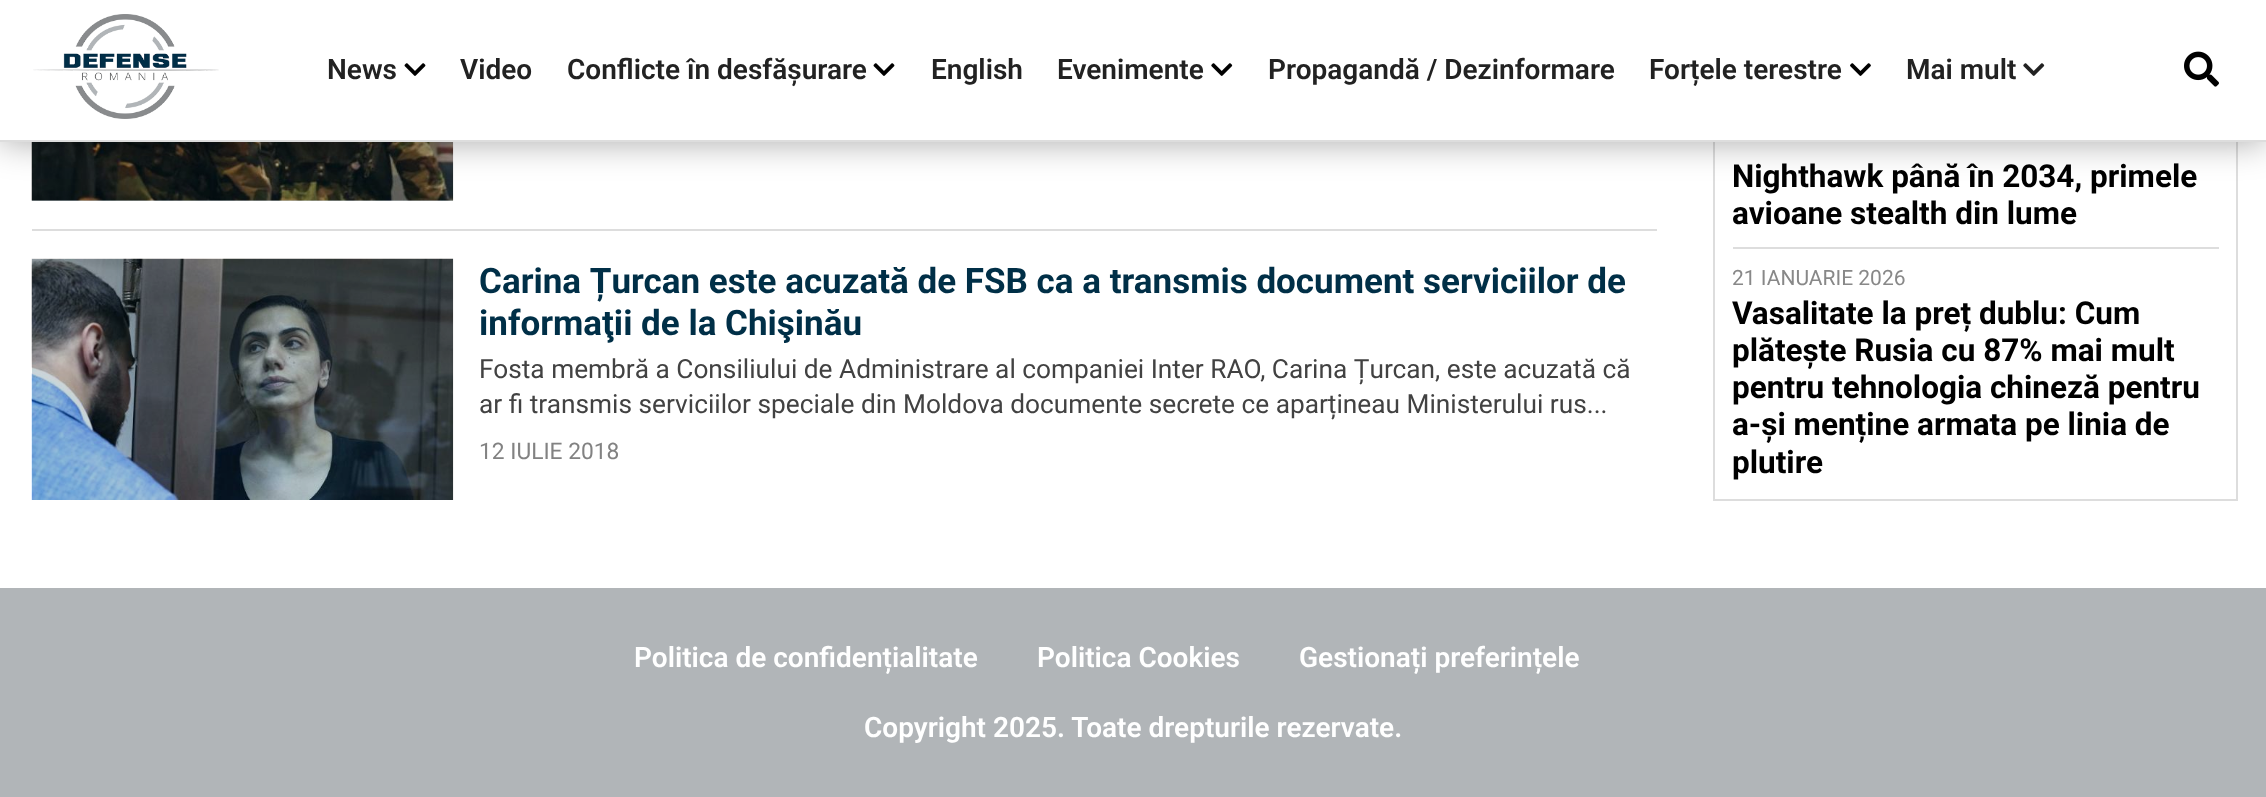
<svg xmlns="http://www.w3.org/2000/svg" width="2266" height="797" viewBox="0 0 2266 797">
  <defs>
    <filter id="blur1" x="-50%" y="-200%" width="200%" height="500%"><feGaussianBlur stdDeviation="17.5"/></filter>
  </defs>
  <rect width="100%" height="100%" fill="#ffffff"/>
  <rect x="32" y="200" width="421" height="1" fill="#ccd5da"/>
  <image x="31" y="142" width="423" height="59" href="img7.png"/>
  <rect x="1714" y="-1" width="523" height="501" fill="none" stroke="#dddddd" stroke-width="2"/>
  <rect x="0" y="0" width="2266" height="142" fill="#000000" fill-opacity="0.35" filter="url(#blur1)"/>
  <rect x="0" y="0" width="2266" height="140" fill="#ffffff"/>
  <rect x="0" y="140" width="2266" height="2" fill="#dddddd"/>
  <image x="33" y="14" width="186" height="105" href="img1.png"/>
  <text x="327" y="79" font-family="Roboto" font-size="28" font-weight="600" fill="#222222">News</text>
  <image x="404" y="63" width="22" height="13" href="img2.png"/>
  <text x="460" y="79" font-family="Roboto" font-size="28" font-weight="600" fill="#222222">Video</text>
  <text x="567" y="79" font-family="Roboto" font-size="28" font-weight="600" fill="#222222">Conflicte în desfășurare</text>
  <image x="873" y="63" width="22" height="13" href="img2.png"/>
  <text x="931" y="79" font-family="Roboto" font-size="28" font-weight="600" fill="#222222">English</text>
  <text x="1057" y="79" font-family="Roboto" font-size="28" font-weight="600" fill="#222222">Evenimente</text>
  <image x="1211" y="63" width="22" height="13" href="img3.png"/>
  <text x="1268" y="79" font-family="Roboto" font-size="28" font-weight="600" fill="#222222">Propagandă / Dezinformare</text>
  <text x="1649" y="79" font-family="Roboto" font-size="28" font-weight="600" fill="#222222">Forțele terestre</text>
  <image x="1850" y="63" width="21" height="13" href="img4.png"/>
  <text x="1906" y="79" font-family="Roboto" font-size="28" font-weight="600" fill="#222222">Mai mult</text>
  <image x="2023" y="63" width="22" height="13" href="img5.png"/>
  <image x="2184" y="51" width="35" height="36" href="img6.png"/>
  <rect x="32" y="229" width="1625" height="2" fill="#dddddd"/>
  <image x="31" y="258" width="423" height="242" href="img8.png"/>
  <text x="479" y="293" font-family="Roboto" font-size="35" font-weight="bold" fill="#002f47">Carina Țurcan este acuzată de FSB ca a transmis document serviciilor de</text>
  <text x="479" y="335" font-family="Roboto" font-size="35" font-weight="bold" fill="#002f47">informaţii de la Chişinău</text>
  <text x="479" y="378" font-family="Roboto" font-size="26.25" fill="#424242">Fosta membră a Consiliului de Administrare al companiei Inter RAO, Carina Țurcan, este acuzată că</text>
  <text x="479" y="413" font-family="Roboto" font-size="26.25" fill="#424242">ar fi transmis serviciilor speciale din Moldova documente secrete ce aparțineau Ministerului rus...</text>
  <text x="479" y="459" font-family="Roboto" font-size="22.75" fill="#828282">12 IULIE 2018</text>
  <text x="1732" y="187" font-family="Roboto" font-size="31.5" font-weight="bold" fill="#000000">Nighthawk până în 2034, primele</text>
  <text x="1732" y="224" font-family="Roboto" font-size="31.5" font-weight="bold" fill="#000000">avioane stealth din lume</text>
  <rect x="1733" y="247" width="486" height="2" fill="#dddddd"/>
  <text x="1732" y="285" font-family="Roboto" font-size="21" fill="#888888">21 IANUARIE 2026</text>
  <text x="1732" y="324" font-family="Roboto" font-size="31.5" font-weight="bold" fill="#000000">Vasalitate la preț dublu: Cum</text>
  <text x="1732" y="361" font-family="Roboto" font-size="31.5" font-weight="bold" fill="#000000">plătește Rusia cu 87% mai mult</text>
  <text x="1732" y="398" font-family="Roboto" font-size="31.5" font-weight="bold" fill="#000000">pentru tehnologia chineză pentru</text>
  <text x="1732" y="435" font-family="Roboto" font-size="31.5" font-weight="bold" fill="#000000">a-și menține armata pe linia de</text>
  <text x="1732" y="473" font-family="Roboto" font-size="31.5" font-weight="bold" fill="#000000">plutire</text>
  <rect x="0" y="588" width="2266" height="209" fill="#b1b5b8"/>
  <text x="634" y="667" font-family="Roboto" font-size="28" font-weight="600" fill="#ffffff">Politica de confidențialitate</text>
  <text x="1037" y="667" font-family="Roboto" font-size="28" font-weight="600" fill="#ffffff">Politica Cookies</text>
  <text x="1299" y="667" font-family="Roboto" font-size="28" font-weight="600" fill="#ffffff">Gestionați preferințele</text>
  <text x="864" y="737" font-family="Roboto" font-size="28" font-weight="600" fill="#ffffff">Copyright 2025. Toate drepturile rezervate.</text>
</svg>
